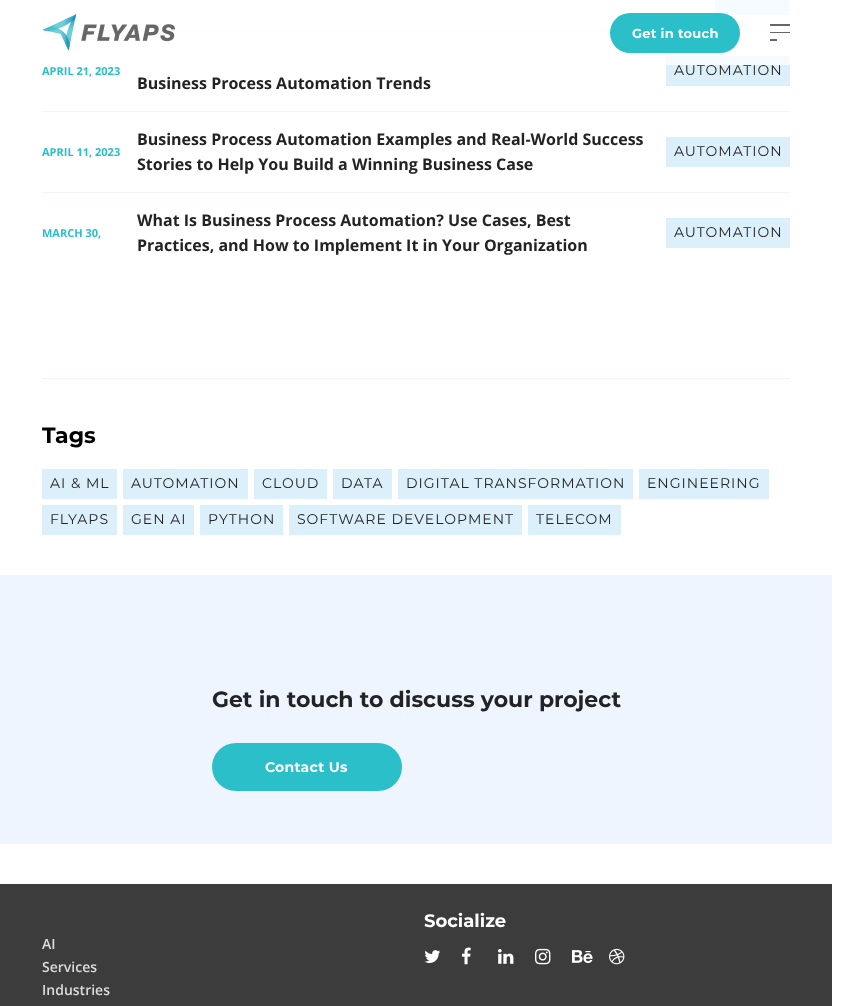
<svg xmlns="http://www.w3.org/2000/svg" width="847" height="1006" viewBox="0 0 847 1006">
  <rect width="100%" height="100%" fill="#ffffff"/>
  <rect x="715" y="0" width="75" height="15" fill="#dcf0fc"/>
  <rect x="42" y="30" width="748" height="1" fill="#eff5ff"/>
  <rect x="666" y="56" width="124" height="30" fill="#dcf0fc"/>
  <rect x="42" y="0" width="748" height="65" fill="#ffffff" fill-opacity="0.7"/>
  <image x="42" y="14" width="133" height="37" href="img1.png"/>
  <rect x="610" y="13" width="130" height="40" rx="20" fill="#2bbfca"/>
  <text x="632" y="38" font-family="'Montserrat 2'" font-size="13" font-weight="100" letter-spacing="0.25" fill="#ffffff">Get in touch</text>
  <rect x="770" y="24" width="20" height="2" fill="#676767"/>
  <rect x="770" y="32" width="20" height="1" fill="#676767"/>
  <rect x="770" y="39" width="7" height="2" fill="#676767"/>
  <text x="42" y="75" font-family="Open Sans" font-size="11" font-weight="bold" fill="#2bbfca">APRIL 21, 2023</text>
  <text x="674" y="75" font-family="Montserrat" font-size="14" font-weight="100" letter-spacing="1" fill="#232323">AUTOMATION</text>
  <text x="137" y="89" font-family="Open Sans" font-size="16" font-weight="bold" fill="#232323">Business Process Automation Trends</text>
  <rect x="42" y="111" width="748" height="1" fill="#eff5ff"/>
  <text x="42" y="156" font-family="Open Sans" font-size="11" font-weight="bold" fill="#2bbfca">APRIL 11, 2023</text>
  <text x="137" y="145" font-family="Open Sans" font-size="16" font-weight="bold" fill="#232323">Business Process Automation Examples and Real-World Success</text>
  <text x="137" y="170" font-family="Open Sans" font-size="16" font-weight="bold" fill="#232323">Stories to Help You Build a Winning Business Case</text>
  <rect x="666" y="137" width="124" height="30" fill="#dcf0fc"/>
  <text x="674" y="156" font-family="Montserrat" font-size="14" font-weight="100" letter-spacing="1" fill="#232323">AUTOMATION</text>
  <rect x="42" y="192" width="748" height="1" fill="#eff5ff"/>
  <text x="42" y="237" font-family="Open Sans" font-size="11" font-weight="bold" fill="#2bbfca">MARCH 30,</text>
  <text x="137" y="226" font-family="Open Sans" font-size="16" font-weight="bold" fill="#232323">What Is Business Process Automation? Use Cases, Best</text>
  <text x="137" y="251" font-family="Open Sans" font-size="16" font-weight="bold" fill="#232323">Practices, and How to Implement It in Your Organization</text>
  <rect x="666" y="218" width="124" height="30" fill="#dcf0fc"/>
  <text x="674" y="237" font-family="Montserrat" font-size="14" font-weight="100" letter-spacing="1" fill="#232323">AUTOMATION</text>
  <rect x="42" y="378" width="748" height="1" fill="#eff5ff"/>
  <text x="42" y="443" font-family="'Montserrat 2'" font-size="22" font-weight="100" fill="#000000">Tags</text>
  <rect x="42" y="469" width="75" height="30" fill="#dcf0fc"/>
  <text x="50" y="488" font-family="Montserrat" font-size="14" font-weight="100" letter-spacing="1" fill="#232323">AI &amp; ML</text>
  <rect x="123" y="469" width="125" height="30" fill="#dcf0fc"/>
  <text x="131" y="488" font-family="Montserrat" font-size="14" font-weight="100" letter-spacing="1" fill="#232323">AUTOMATION</text>
  <rect x="254" y="469" width="73" height="30" fill="#dcf0fc"/>
  <text x="262" y="488" font-family="Montserrat" font-size="14" font-weight="100" letter-spacing="1" fill="#232323">CLOUD</text>
  <rect x="333" y="469" width="59" height="30" fill="#dcf0fc"/>
  <text x="341" y="488" font-family="Montserrat" font-size="14" font-weight="100" letter-spacing="1" fill="#232323">DATA</text>
  <rect x="398" y="469" width="235" height="30" fill="#dcf0fc"/>
  <text x="406" y="488" font-family="Montserrat" font-size="14" font-weight="100" letter-spacing="1" fill="#232323">DIGITAL TRANSFORMATION</text>
  <rect x="639" y="469" width="130" height="30" fill="#dcf0fc"/>
  <text x="647" y="488" font-family="Montserrat" font-size="14" font-weight="100" letter-spacing="1" fill="#232323">ENGINEERING</text>
  <rect x="42" y="505" width="75" height="30" fill="#dcf0fc"/>
  <text x="50" y="524" font-family="Montserrat" font-size="14" font-weight="100" letter-spacing="1" fill="#232323">FLYAPS</text>
  <rect x="123" y="505" width="71" height="30" fill="#dcf0fc"/>
  <text x="131" y="524" font-family="Montserrat" font-size="14" font-weight="100" letter-spacing="1" fill="#232323">GEN AI</text>
  <rect x="200" y="505" width="83" height="30" fill="#dcf0fc"/>
  <text x="208" y="524" font-family="Montserrat" font-size="14" font-weight="100" letter-spacing="1" fill="#232323">PYTHON</text>
  <rect x="289" y="505" width="233" height="30" fill="#dcf0fc"/>
  <text x="297" y="524" font-family="Montserrat" font-size="14" font-weight="100" letter-spacing="1" fill="#232323">SOFTWARE DEVELOPMENT</text>
  <rect x="528" y="505" width="93" height="30" fill="#dcf0fc"/>
  <text x="536" y="524" font-family="Montserrat" font-size="14" font-weight="100" letter-spacing="1" fill="#232323">TELECOM</text>
  <rect x="0" y="575" width="832" height="269" fill="#eff5ff"/>
  <text x="212" y="707" font-family="'Montserrat 2'" font-size="22" font-weight="100" fill="#232323">Get in touch to discuss your project</text>
  <rect x="212" y="743" width="190" height="48" rx="24" fill="#2bbfca"/>
  <text x="265" y="772" font-family="'Montserrat 2'" font-size="14" font-weight="100" letter-spacing="0.25" fill="#ffffff">Contact Us</text>
  <rect x="0" y="884" width="832" height="122" fill="#3c3c3c"/>
  <text x="424" y="927" font-family="'Montserrat 2'" font-size="18" font-weight="100" fill="#ffffff">Socialize</text>
  <image x="424" y="950" width="17" height="13" href="img2.png"/>
  <image x="461" y="947" width="10" height="18" href="img3.png"/>
  <image x="498" y="949" width="16" height="15" href="img4.png"/>
  <image x="535" y="948" width="16" height="17" href="img5.png"/>
  <image x="572" y="950" width="21" height="13" href="img6.png"/>
  <image x="609" y="948" width="16" height="17" href="img7.png"/>
  <text x="42" y="949" font-family="Open Sans" font-size="14" font-weight="600" fill="#dcdcdc">AI</text>
  <text x="42" y="972" font-family="Open Sans" font-size="14" font-weight="600" fill="#dcdcdc">Services</text>
  <text x="42" y="995" font-family="Open Sans" font-size="14" font-weight="600" fill="#dcdcdc">Industries</text>
</svg>
